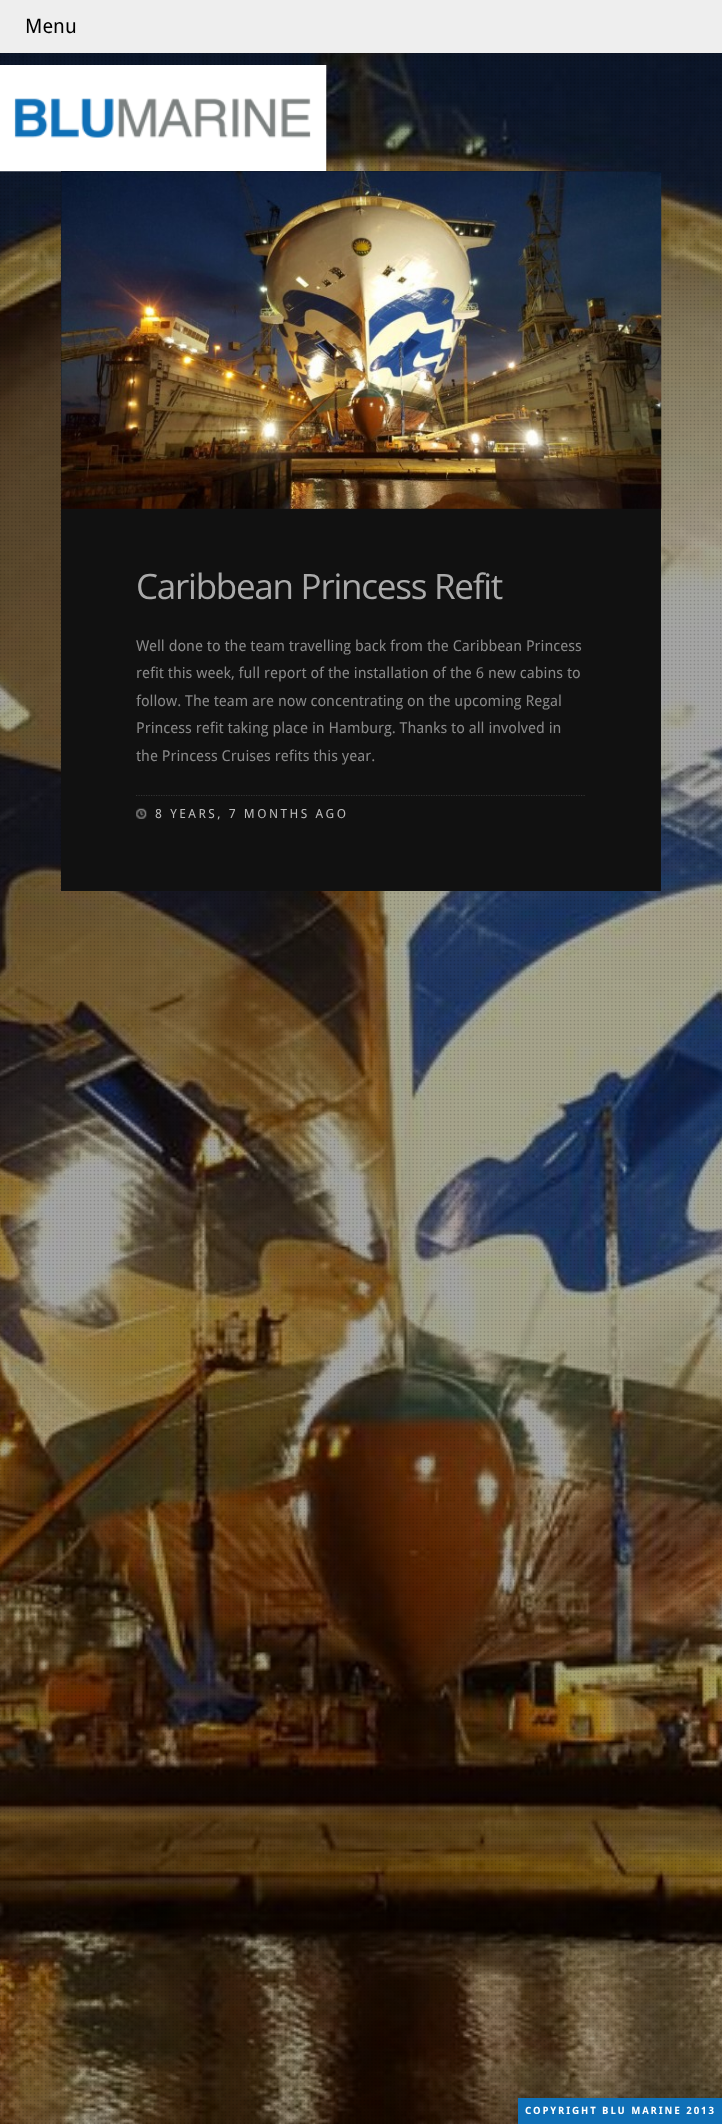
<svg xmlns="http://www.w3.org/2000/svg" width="722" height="2124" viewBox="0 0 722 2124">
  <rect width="100%" height="100%" fill="#000000"/>
  <rect x="0" y="0" width="722" height="53" fill="#eeeeee"/>
  <text x="25" y="33" font-family="Droid Sans" font-size="20" fill="#000000">Menu</text>
  <image x="0" y="53" width="722" height="2071" href="img1.png"/>
  <image x="0" y="53" width="722" height="2071" href="img2.png"/>
  <image x="0" y="65" width="327" height="107" href="img3.png"/>
  <rect x="61" y="171" width="600" height="720" fill="#111111"/>
  <image x="61" y="171" width="601" height="338" href="img4.png"/>
  <text x="136" y="599" font-family="Open Sans" font-size="35" letter-spacing="-1.25" fill="#aaaaaa">Caribbean Princess Refit</text>
  <text x="136" y="651" font-family="Droid Sans" font-size="15" fill="#888888">Well done to the team travelling back from the Caribbean Princess</text>
  <text x="136" y="678" font-family="Droid Sans" font-size="15" fill="#888888">refit this week, full report of the installation of the 6 new cabins to</text>
  <text x="136" y="706" font-family="Droid Sans" font-size="15" fill="#888888">follow. The team are now concentrating on the upcoming Regal</text>
  <text x="136" y="733" font-family="Droid Sans" font-size="15" fill="#888888">Princess refit taking place in Hamburg. Thanks to all involved in</text>
  <text x="136" y="761" font-family="Droid Sans" font-size="15" fill="#888888">the Princess Cruises refits this year.</text>
  <path d="M136 795.5H586" fill="none" stroke="#333333" stroke-width="1.2" stroke-dasharray="1.25 1.25"/>
  <image x="136" y="808" width="11" height="11" href="img5.png"/>
  <text x="155" y="818" font-family="Droid Sans" font-size="12.5" letter-spacing="2.5" fill="#bbbbbb">8 YEARS, 7 MONTHS AGO</text>
  <rect x="518" y="2098" width="204" height="26" fill="#0f70b7"/>
  <text x="525" y="2114" font-family="Droid Sans" font-size="10" font-weight="bold" letter-spacing="1.9" fill="#ffffff">COPYRIGHT BLU MARINE 2013</text>
</svg>
